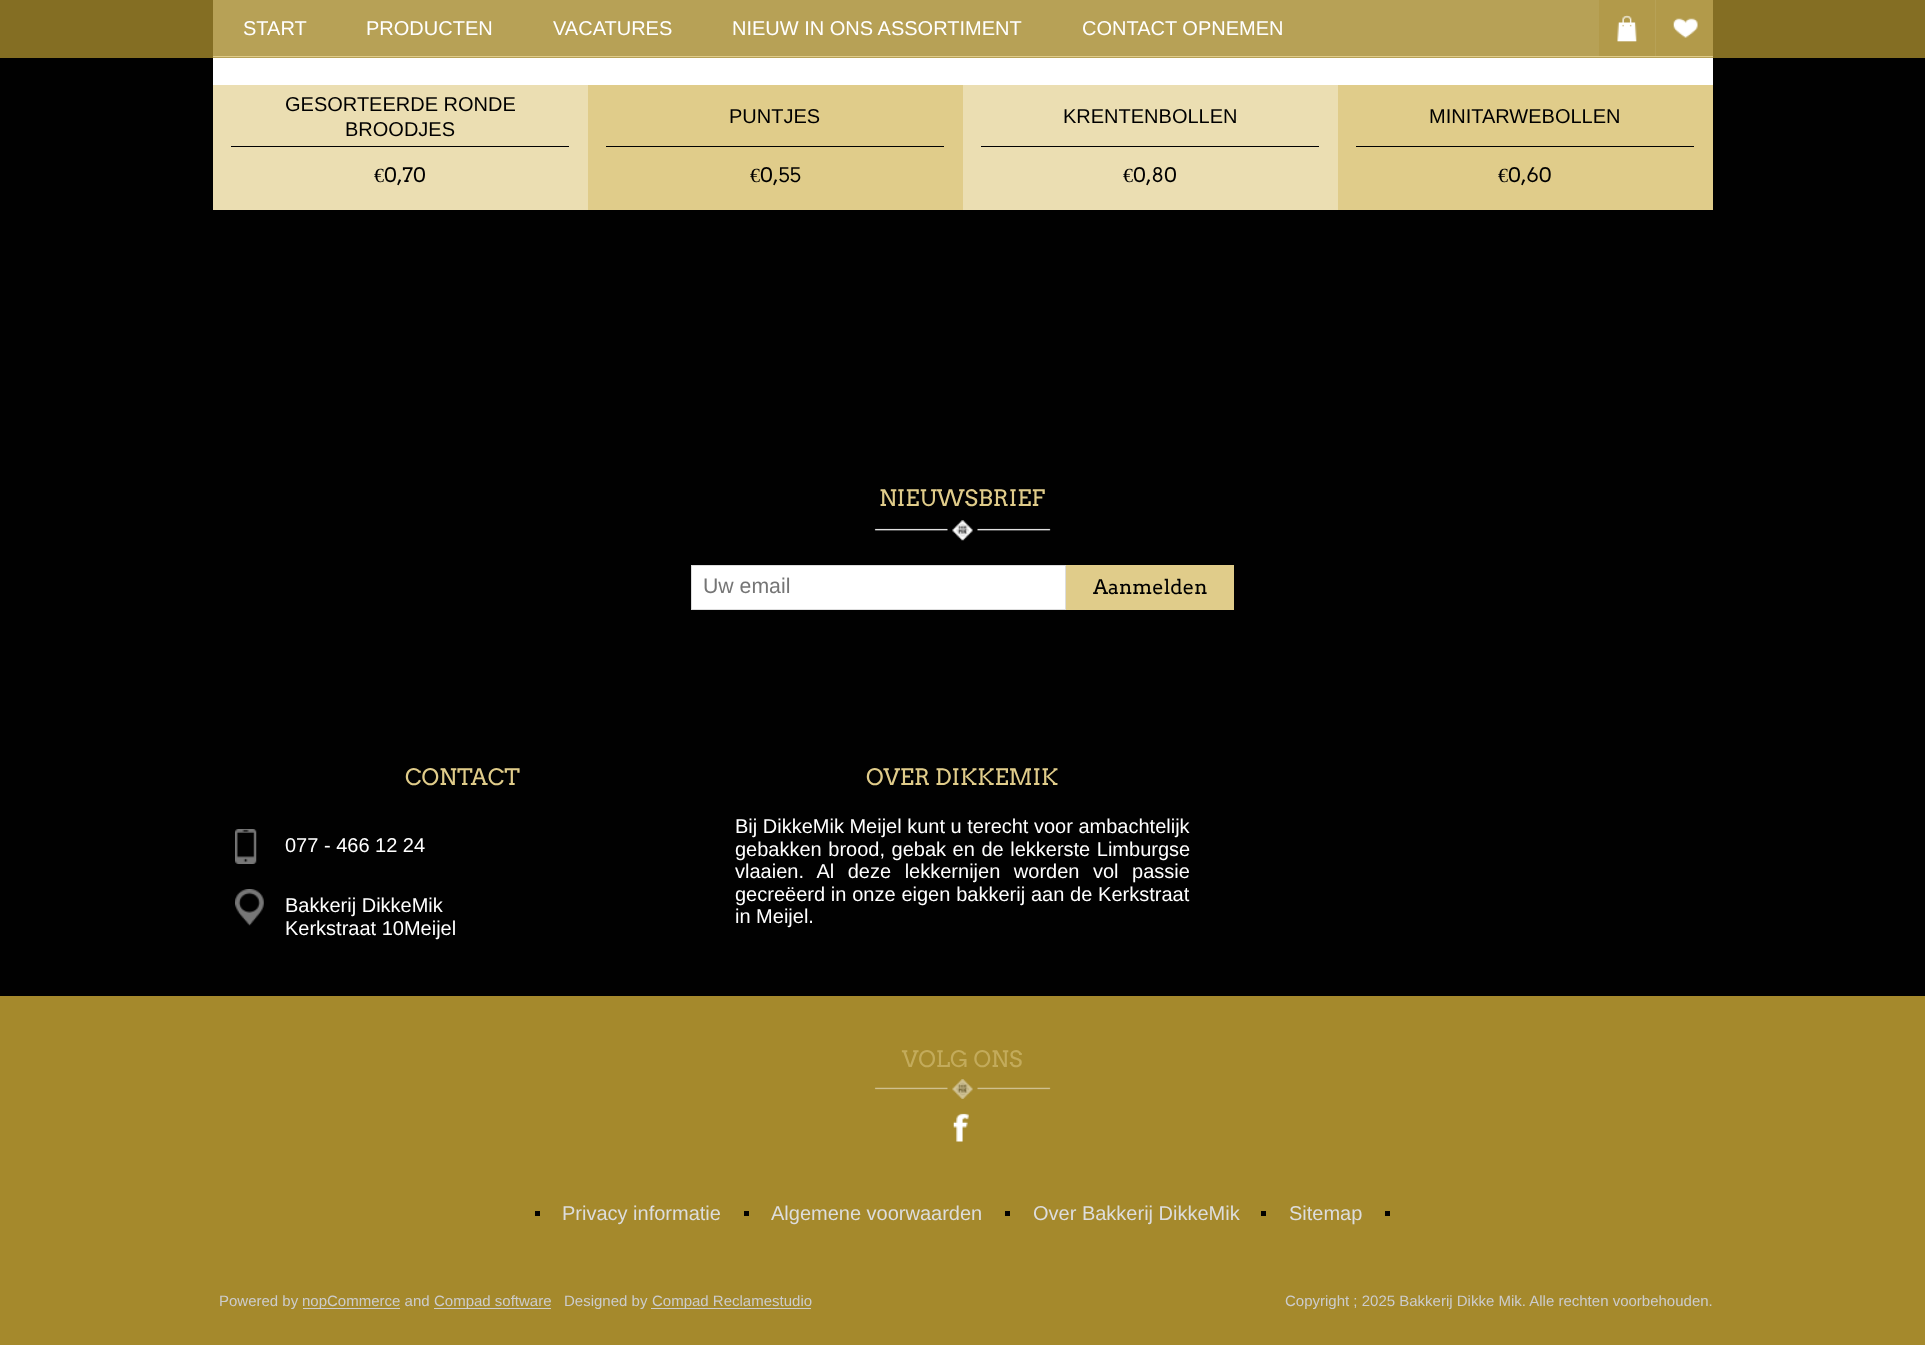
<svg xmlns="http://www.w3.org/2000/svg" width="1925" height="1345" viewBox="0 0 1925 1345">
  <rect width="100%" height="100%" fill="#010101"/>
  <rect x="0" y="0" width="1925" height="58" fill="#846e23"/>
  <rect x="213" y="0" width="1500" height="58" fill="#b7a156"/>
  <rect x="213" y="56" width="1500" height="1" fill="#e0cc8a"/>
  <text x="243" y="35" font-family="Liberation Sans" font-size="20" fill="#ffffff">START</text>
  <text x="366" y="35" font-family="Liberation Sans" font-size="20" fill="#ffffff">PRODUCTEN</text>
  <text x="553" y="35" font-family="Liberation Sans" font-size="20" fill="#ffffff">VACATURES</text>
  <text x="732" y="35" font-family="Liberation Sans" font-size="20" fill="#ffffff">NIEUW IN ONS ASSORTIMENT</text>
  <text x="1082" y="35" font-family="Liberation Sans" font-size="20" fill="#ffffff">CONTACT OPNEMEN</text>
  <rect x="1599" y="0" width="56" height="56" fill="#b29a4a"/>
  <image x="1617" y="15" width="20" height="27" href="img1.png"/>
  <rect x="1656" y="0" width="57" height="56" fill="#b29a4a"/>
  <image x="1673" y="18" width="25" height="20" href="img2.png"/>
  <rect x="213" y="58" width="1500" height="27" fill="#ffffff"/>
  <rect x="213" y="85" width="375" height="125" fill="#ebdeb2"/>
  <rect x="231" y="146" width="338" height="1" fill="#010101"/>
  <text x="285" y="111" font-family="Liberation Sans" font-size="20" fill="#000000">GESORTEERDE RONDE</text>
  <text x="345" y="136" font-family="Liberation Sans" font-size="20" fill="#000000">BROODJES</text>
  <text x="374" y="182" font-family="Liberation Serif" font-size="20" fill="#000000">€</text>
  <text x="384" y="182" font-family="Arvo" font-size="20" fill="#000000">0,70</text>
  <rect x="588" y="85" width="375" height="125" fill="#e0cc8a"/>
  <rect x="606" y="146" width="338" height="1" fill="#010101"/>
  <text x="729" y="123" font-family="Liberation Sans" font-size="20" fill="#000000">PUNTJES</text>
  <text x="750" y="182" font-family="Liberation Serif" font-size="20" fill="#000000">€</text>
  <text x="760" y="182" font-family="Arvo" font-size="20" fill="#000000">0,55</text>
  <rect x="963" y="85" width="375" height="125" fill="#ebdeb2"/>
  <rect x="981" y="146" width="338" height="1" fill="#010101"/>
  <text x="1063" y="123" font-family="Liberation Sans" font-size="20" fill="#000000">KRENTENBOLLEN</text>
  <text x="1123" y="182" font-family="Liberation Serif" font-size="20" fill="#000000">€</text>
  <text x="1133" y="182" font-family="Arvo" font-size="20" fill="#000000">0,80</text>
  <rect x="1338" y="85" width="375" height="125" fill="#e0cc8a"/>
  <rect x="1356" y="146" width="338" height="1" fill="#010101"/>
  <text x="1429" y="123" font-family="Liberation Sans" font-size="20" fill="#000000">MINITARWEBOLLEN</text>
  <text x="1498" y="182" font-family="Liberation Serif" font-size="20" fill="#000000">€</text>
  <text x="1508" y="182" font-family="Arvo" font-size="20" fill="#000000">0,60</text>
  <image x="874" y="520" width="177" height="21" href="img3.png"/>
  <text x="879" y="506" font-family="Arvo" font-size="22.5" fill="#e0cc8a">NIEUWSBRIEF</text>
  <rect x="691.5" y="565.5" width="374" height="44" fill="#ffffff" stroke="#dddddd"/>
  <text x="703" y="593" font-family="Liberation Sans" font-size="21.25" fill="#757575">Uw email</text>
  <rect x="1066" y="565" width="168" height="45" fill="#e0cc8a"/>
  <text x="1093" y="594" font-family="Arvo" font-size="20" fill="#000000">Aanmelden</text>
  <text x="405" y="785" font-family="Arvo" font-size="22.5" fill="#e0cc8a">CONTACT</text>
  <image x="235" y="829" width="22" height="35" href="img4.png"/>
  <text x="285" y="852" font-family="Liberation Sans" font-size="20" fill="#ffffff">077 - 466 12 24</text>
  <image x="235" y="889" width="29" height="37" href="img5.png"/>
  <text x="285" y="912" font-family="Liberation Sans" font-size="20" fill="#ffffff">Bakkerij DikkeMik</text>
  <text x="285" y="935" font-family="Liberation Sans" font-size="20" fill="#ffffff">Kerkstraat 10Meijel</text>
  <text x="866" y="785" font-family="Arvo" font-size="22.5" fill="#e0cc8a">OVER DIKKEMIK</text>
  <text x="735" y="833" font-family="Liberation Sans" font-size="20" fill="#ffffff">Bij DikkeMik Meijel kunt u terecht voor ambachtelijk</text>
  <text x="735" y="856" word-spacing="1" font-family="Liberation Sans" font-size="20" fill="#ffffff">gebakken brood, gebak en de lekkerste Limburgse</text>
  <text x="735" y="878" word-spacing="8" font-family="Liberation Sans" font-size="20" fill="#ffffff">vlaaien. Al deze lekkernijen worden vol passie</text>
  <text x="735" y="901" word-spacing="0.25" font-family="Liberation Sans" font-size="20" fill="#ffffff">gecreëerd in onze eigen bakkerij aan de Kerkstraat</text>
  <text x="735" y="923" font-family="Liberation Sans" font-size="20" fill="#ffffff">in Meijel.</text>
  <rect x="0" y="996" width="1925" height="349" fill="#a5892c"/>
  <image x="874" y="1079" width="177" height="20" href="img6.png"/>
  <text x="902" y="1067" font-family="Arvo" font-size="22.5" fill="#c3ab5b">VOLG ONS</text>
  <image x="953" y="1113" width="16" height="29" href="img7.png"/>
  <rect x="535" y="1211" width="5" height="5" fill="#010101"/>
  <text x="562" y="1220" font-family="Liberation Sans" font-size="20" fill="#dddddd">Privacy informatie</text>
  <rect x="744" y="1211" width="5" height="5" fill="#010101"/>
  <text x="771" y="1220" font-family="Liberation Sans" font-size="20" fill="#dddddd">Algemene voorwaarden</text>
  <rect x="1005" y="1211" width="5" height="5" fill="#010101"/>
  <text x="1033" y="1220" font-family="Liberation Sans" font-size="20" fill="#dddddd">Over Bakkerij DikkeMik</text>
  <rect x="1261" y="1211" width="5" height="5" fill="#010101"/>
  <text x="1289" y="1220" font-family="Liberation Sans" font-size="20" fill="#dddddd">Sitemap</text>
  <rect x="1385" y="1211" width="5" height="5" fill="#010101"/>
  <text x="219" y="1306" font-family="Liberation Sans" font-size="15" fill="#cccccc">Powered by</text>
  <rect x="303" y="1308" width="97" height="1" fill="#cccccc"/>
  <text x="302" y="1306" font-family="Liberation Sans" font-size="15" fill="#cccccc">nopCommerce and</text>
  <rect x="434" y="1308" width="117" height="1" fill="#cccccc"/>
  <text x="434" y="1306" font-family="Liberation Sans" font-size="15" fill="#cccccc">Compad software</text>
  <text x="564" y="1306" font-family="Liberation Sans" font-size="15" fill="#cccccc">Designed by</text>
  <rect x="651" y="1308" width="160" height="1" fill="#cccccc"/>
  <text x="652" y="1306" font-family="Liberation Sans" font-size="15" fill="#cccccc">Compad Reclamestudio</text>
  <text x="1285" y="1306" font-family="Liberation Sans" font-size="15" fill="#cccccc">Copyright ; 2025 Bakkerij Dikke Mik. Alle rechten voorbehouden.</text>
</svg>
